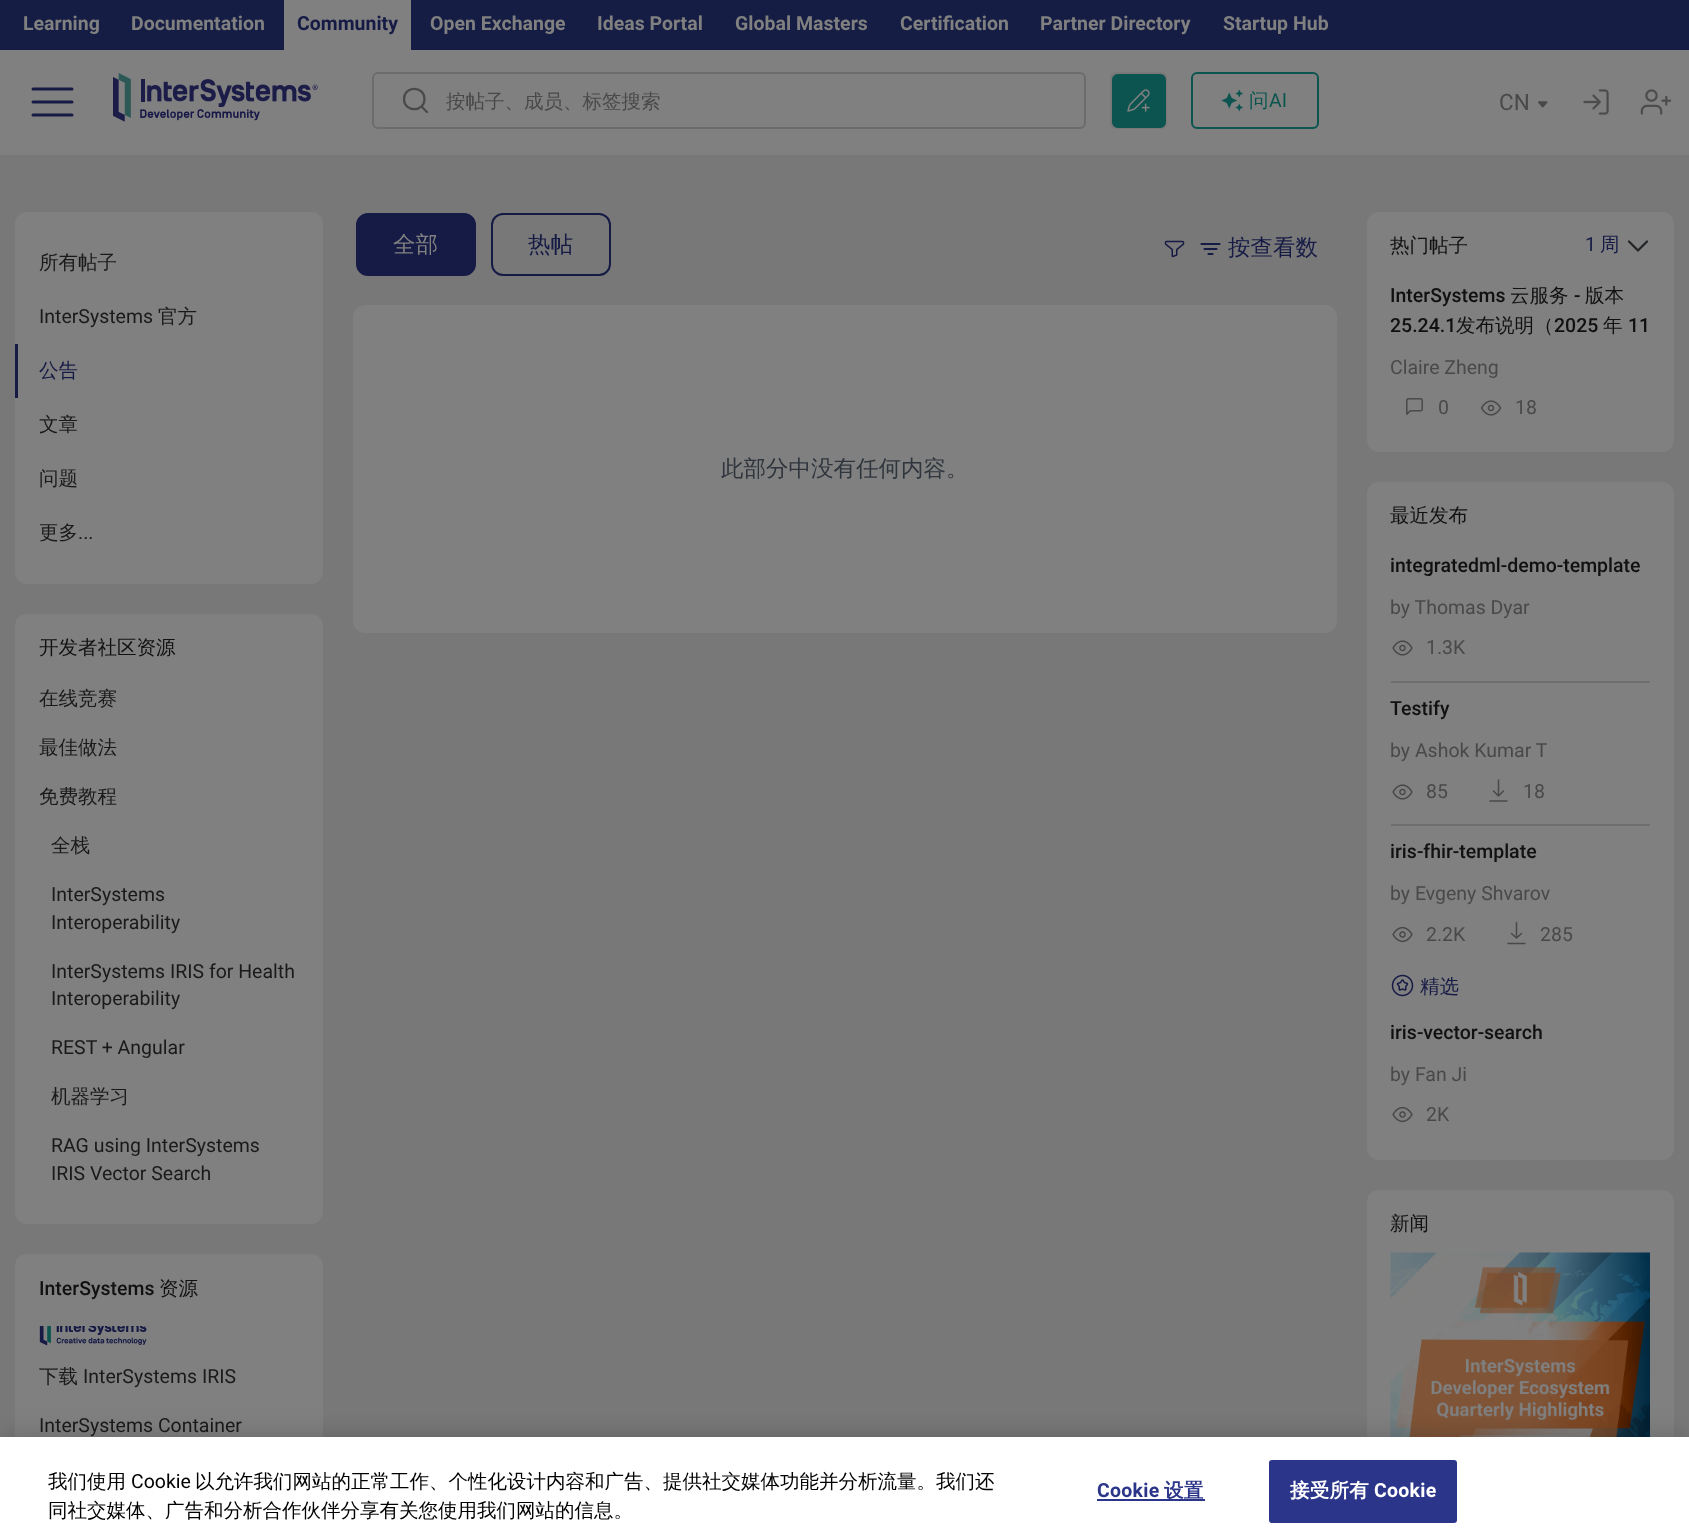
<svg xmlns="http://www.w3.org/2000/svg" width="1689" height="1540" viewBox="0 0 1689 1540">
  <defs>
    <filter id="blur1" x="-50%" y="-200%" width="200%" height="500%"><feGaussianBlur stdDeviation="13.5"/></filter>
  </defs>
  <rect width="100%" height="100%" fill="#787879"/>
  <rect x="0" y="50" width="1689" height="105" fill="#808080"/>
  <rect x="0" y="0" width="1689" height="50" fill="#151d44"/>
  <text x="23" y="30" font-family="Roboto" font-size="19.5" font-weight="bold" fill="#808080">Learning</text>
  <text x="131" y="30" font-family="Roboto" font-size="19.5" font-weight="bold" fill="#808080">Documentation</text>
  <rect x="284" y="0" width="127" height="50" fill="#808080"/>
  <text x="297" y="30" font-family="Roboto" font-size="19.5" font-weight="bold" fill="#161b45">Community</text>
  <text x="430" y="30" font-family="Roboto" font-size="19.5" font-weight="bold" fill="#808080">Open Exchange</text>
  <text x="597" y="30" font-family="Roboto" font-size="19.5" font-weight="bold" fill="#808080">Ideas Portal</text>
  <text x="735" y="30" font-family="Roboto" font-size="19.5" font-weight="bold" fill="#808080">Global Masters</text>
  <text x="900" y="30" font-family="Roboto" font-size="19.5" font-weight="bold" fill="#808080">Certification</text>
  <text x="1040" y="30" font-family="Roboto" font-size="19.5" font-weight="bold" fill="#808080">Partner Directory</text>
  <text x="1223" y="30" font-family="Roboto" font-size="19.5" font-weight="bold" fill="#808080">Startup Hub</text>
  <path d="M33 102H72M33 89H72M33 115H72" fill="none" stroke="#161b45" stroke-width="3" stroke-linecap="round" stroke-linejoin="round"/>
  <image x="113" y="73" width="205" height="49" href="img1.png"/>
  <path d="M427 112L421.5 106.5M424.5 99C424.5 112.5 404 112.5 404 99C404 85.5 424.5 85.5 424.5 99Z" fill="none" stroke="#494949" stroke-width="2.2" stroke-linecap="round" stroke-linejoin="round"/>
  <rect x="373" y="73" width="712" height="55" rx="5" fill="none" stroke="#6c6c6c" stroke-width="2"/>
  <text x="446" y="108" font-family="WenQuanYi Zen Hei" font-size="19.5" font-weight="500" fill="#494949">按帖子、成员、标签搜索</text>
  <rect x="1110" y="72" width="57" height="57" rx="6" fill="#787878"/>
  <image x="1112" y="74" width="54" height="54" href="img2.png"/>
  <image x="1221" y="89" width="23" height="23" href="img3.png"/>
  <rect x="1192" y="73" width="126" height="55" rx="5" fill="none" stroke="#0c554f" stroke-width="2"/>
  <text x="1249" y="107" font-family="WenQuanYi Zen Hei" font-size="19.5" font-weight="500" fill="#0c554f">问</text>
  <text x="1269" y="107" font-family="Roboto" font-size="19.5" fill="#0c554f">AI</text>
  <text x="1499" y="110" font-family="Roboto" font-size="22.5" fill="#494949">CN</text>
  <image x="1538" y="101" width="10" height="7" href="img4.png"/>
  <image x="1583" y="89" width="26" height="26" href="img5.png"/>
  <image x="1640" y="89" width="32" height="26" href="img6.png"/>
  <rect x="15" y="212" width="308" height="372" rx="12" fill="#808080"/>
  <text x="39" y="269" font-family="WenQuanYi Zen Hei" font-size="19.5" font-weight="500" fill="#1a1a1a">所有帖子</text>
  <text x="39" y="323" font-family="Roboto" font-size="19.5" fill="#1a1a1a">InterSystems</text>
  <text x="158" y="323" font-family="WenQuanYi Zen Hei" font-size="19.5" font-weight="500" fill="#1a1a1a">官方</text>
  <rect x="15" y="344" width="3" height="54" fill="#161b45"/>
  <text x="39" y="377" font-family="WenQuanYi Zen Hei" font-size="19.5" font-weight="500" fill="#161b45">公告</text>
  <text x="39" y="431" font-family="WenQuanYi Zen Hei" font-size="19.5" font-weight="500" fill="#1a1a1a">文章</text>
  <text x="39" y="485" font-family="WenQuanYi Zen Hei" font-size="19.5" font-weight="500" fill="#1a1a1a">问题</text>
  <text x="39" y="539" font-family="WenQuanYi Zen Hei" font-size="19.5" font-weight="500" fill="#1a1a1a">更多</text>
  <text x="78" y="539" font-family="Roboto" font-size="19.5" fill="#1a1a1a">...</text>
  <rect x="15" y="614" width="308" height="610" rx="12" fill="#808080"/>
  <text x="39" y="654" font-family="WenQuanYi Zen Hei" font-size="19.5" font-weight="500" fill="#111111">开发者社区资源</text>
  <text x="39" y="705" font-family="WenQuanYi Zen Hei" font-size="19.5" font-weight="500" fill="#1a1a1a">在线竞赛</text>
  <text x="39" y="754" font-family="WenQuanYi Zen Hei" font-size="19.5" font-weight="500" fill="#1a1a1a">最佳做法</text>
  <text x="39" y="803" font-family="WenQuanYi Zen Hei" font-size="19.5" font-weight="500" fill="#1a1a1a">免费教程</text>
  <text x="51" y="852" font-family="WenQuanYi Zen Hei" font-size="19.5" font-weight="500" fill="#1a1a1a">全栈</text>
  <text x="51" y="901" font-family="Roboto" font-size="19.5" fill="#1a1a1a">InterSystems</text>
  <text x="51" y="929" font-family="Roboto" font-size="19.5" fill="#1a1a1a">Interoperability</text>
  <text x="51" y="978" font-family="Roboto" font-size="19.5" fill="#1a1a1a">InterSystems IRIS for Health</text>
  <text x="51" y="1005" font-family="Roboto" font-size="19.5" fill="#1a1a1a">Interoperability</text>
  <text x="51" y="1054" font-family="Roboto" font-size="19.5" fill="#1a1a1a">REST + Angular</text>
  <text x="51" y="1103" font-family="WenQuanYi Zen Hei" font-size="19.5" font-weight="500" fill="#1a1a1a">机器学习</text>
  <text x="51" y="1152" font-family="Roboto" font-size="19.5" fill="#1a1a1a">RAG using InterSystems</text>
  <text x="51" y="1180" font-family="Roboto" font-size="19.5" fill="#1a1a1a">IRIS Vector Search</text>
  <rect x="15" y="1254" width="308" height="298" rx="12" fill="#808080"/>
  <text x="39" y="1295" font-family="Roboto" font-size="19.5" font-weight="500" fill="#111111">InterSystems</text>
  <text x="159" y="1295" font-family="WenQuanYi Zen Hei" font-size="19.5" font-weight="500" fill="#111111">资源</text>
  <image x="39" y="1326" width="110" height="20" href="img7.png"/>
  <text x="39" y="1383" font-family="WenQuanYi Zen Hei" font-size="19.5" font-weight="500" fill="#1a1a1a">下载</text>
  <text x="83" y="1383" font-family="Roboto" font-size="19.5" fill="#1a1a1a">InterSystems IRIS</text>
  <text x="39" y="1432" font-family="Roboto" font-size="19.5" fill="#1a1a1a">InterSystems Container</text>
  <rect x="357" y="214" width="118" height="61" rx="11" fill="#161b45" stroke="#161b45" stroke-width="2"/>
  <text x="393" y="252" font-family="WenQuanYi Zen Hei" font-size="22.5" font-weight="500" fill="#808080">全部</text>
  <rect x="492" y="214" width="118" height="61" rx="11" fill="none" stroke="#161b45" stroke-width="2"/>
  <text x="528" y="252" font-family="WenQuanYi Zen Hei" font-size="22.5" font-weight="500" fill="#161b45">热帖</text>
  <image x="1164" y="240" width="21" height="18" href="img8.png"/>
  <path d="M1201.5 244H1219.5M1204.5 249H1216.5M1208.5 254H1212.5" fill="none" stroke="#161b45" stroke-width="2.2" stroke-linecap="round"/>
  <text x="1228" y="255" font-family="WenQuanYi Zen Hei" font-size="22.5" font-weight="500" fill="#161b45">按查看数</text>
  <rect x="353" y="305" width="984" height="328" rx="12" fill="#808080"/>
  <text x="721" y="476" font-family="WenQuanYi Zen Hei" font-size="22.5" font-weight="500" fill="#2f353c">此部分中没有任何内容。</text>
  <rect x="1367" y="212" width="307" height="240" rx="12" fill="#808080"/>
  <text x="1390" y="252" font-family="WenQuanYi Zen Hei" font-size="19.5" font-weight="500" fill="#111111">热门帖子</text>
  <text x="1585" y="251" font-family="Roboto" font-size="19.5" fill="#161b45">1</text>
  <text x="1600" y="251" font-family="WenQuanYi Zen Hei" font-size="19.5" font-weight="500" fill="#161b45">周</text>
  <path d="M1647 241.5L1638 250.5L1629 241.5" fill="none" stroke="#222426" stroke-width="2.2" stroke-linecap="round" stroke-linejoin="round"/>
  <text x="1390" y="302" font-family="Roboto" font-size="19.5" font-weight="500" fill="#111111">InterSystems</text>
  <text x="1510" y="302" font-family="WenQuanYi Zen Hei" font-size="19.5" font-weight="500" fill="#111111">云服务</text>
  <text x="1574" y="302" font-family="Roboto" font-size="19.5" font-weight="500" fill="#111111">-</text>
  <text x="1585" y="302" font-family="WenQuanYi Zen Hei" font-size="19.5" font-weight="500" fill="#111111">版本</text>
  <text x="1390" y="332" font-family="Roboto" font-size="19.5" font-weight="500" fill="#111111">25.24.1</text>
  <text x="1456" y="332" font-family="WenQuanYi Zen Hei" font-size="19.5" font-weight="500" fill="#111111">发布说明（</text>
  <text x="1554" y="332" font-family="Roboto" font-size="19.5" font-weight="500" fill="#111111">2025</text>
  <text x="1603" y="332" font-family="WenQuanYi Zen Hei" font-size="19.5" font-weight="500" fill="#111111">年</text>
  <text x="1628" y="332" font-family="Roboto" font-size="19.5" font-weight="500" fill="#111111">11</text>
  <text x="1390" y="374" font-family="Roboto" font-size="19.5" fill="#494949">Claire Zheng</text>
  <image x="1406" y="398" width="17" height="17" href="img9.png"/>
  <text x="1438" y="414" font-family="Roboto" font-size="19.5" fill="#494949">0</text>
  <image x="1480" y="400" width="22" height="16" href="img10.png"/>
  <text x="1515" y="414" font-family="Roboto" font-size="19.5" fill="#494949">18</text>
  <rect x="1367" y="482" width="307" height="678" rx="12" fill="#808080"/>
  <text x="1390" y="522" font-family="WenQuanYi Zen Hei" font-size="19.5" font-weight="500" fill="#111111">最近发布</text>
  <text x="1390" y="572" font-family="Roboto" font-size="19.5" font-weight="500" fill="#111111">integratedml-demo-template</text>
  <text x="1390" y="614" font-family="Roboto" font-size="19.5" fill="#494949">by Thomas Dyar</text>
  <image x="1392" y="640" width="21" height="16" href="img11.png"/>
  <text x="1426" y="654" font-family="Roboto" font-size="19.5" fill="#494949">1.3K</text>
  <rect x="1391" y="681" width="259" height="2" fill="#6d6e6e"/>
  <text x="1390" y="715" font-family="Roboto" font-size="19.5" font-weight="500" fill="#111111">Testify</text>
  <text x="1390" y="757" font-family="Roboto" font-size="19.5" fill="#494949">by Ashok Kumar T</text>
  <image x="1392" y="784" width="21" height="16" href="img11.png"/>
  <text x="1426" y="798" font-family="Roboto" font-size="19.5" fill="#494949">85</text>
  <path d="M1490 801H1507M1498.5 780V796M1498.5 796L1503.5 791M1498.5 796L1493.5 791" fill="none" stroke="#494949" stroke-width="1.5" stroke-linecap="round" stroke-linejoin="round"/>
  <text x="1523" y="798" font-family="Roboto" font-size="19.5" fill="#494949">18</text>
  <rect x="1391" y="824" width="259" height="2" fill="#6d6e6e"/>
  <text x="1390" y="858" font-family="Roboto" font-size="19.5" font-weight="500" fill="#111111">iris-fhir-template</text>
  <text x="1390" y="900" font-family="Roboto" font-size="19.5" fill="#494949">by Evgeny Shvarov</text>
  <image x="1392" y="926" width="21" height="17" href="img12.png"/>
  <text x="1426" y="941" font-family="Roboto" font-size="19.5" fill="#494949">2.2K</text>
  <path d="M1508 943.5H1525M1516.5 922.5V938M1516.5 938L1521.5 933.5M1516.5 938L1511.5 933.5" fill="none" stroke="#494949" stroke-width="1.5" stroke-linecap="round" stroke-linejoin="round"/>
  <text x="1540" y="941" font-family="Roboto" font-size="19.5" fill="#494949">285</text>
  <image x="1391" y="974" width="23" height="23" href="img13.png"/>
  <text x="1420" y="993" font-family="WenQuanYi Zen Hei" font-size="19.5" font-weight="500" fill="#161b45">精选</text>
  <text x="1390" y="1039" font-family="Roboto" font-size="19.5" font-weight="500" fill="#111111">iris-vector-search</text>
  <text x="1390" y="1081" font-family="Roboto" font-size="19.5" fill="#494949">by Fan Ji</text>
  <image x="1392" y="1106" width="21" height="17" href="img12.png"/>
  <text x="1426" y="1121" font-family="Roboto" font-size="19.5" fill="#494949">2K</text>
  <rect x="1367" y="1190" width="307" height="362" rx="12" fill="#808080"/>
  <text x="1390" y="1230" font-family="WenQuanYi Zen Hei" font-size="19.5" font-weight="500" fill="#111111">新闻</text>
  <image x="1390" y="1252" width="260" height="185" href="img14.png"/>
  <rect x="0" y="1437" width="1689" height="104" fill="#000000" fill-opacity="0.2" filter="url(#blur1)"/>
  <rect x="0" y="1437" width="1689" height="103" fill="#ffffff"/>
  <text x="48" y="1488" font-family="WenQuanYi Zen Hei" font-size="19.5" font-weight="500" fill="#000000">我们使用</text>
  <text x="131" y="1488" font-family="Roboto" font-size="19.5" fill="#000000">Cookie</text>
  <text x="195" y="1488" font-family="WenQuanYi Zen Hei" font-size="19.5" font-weight="500" fill="#000000">以允许我们网站的正常工作、个性化设计内容和广告、提供社交媒体功能并分析流量。我们还</text>
  <text x="48" y="1517" font-family="WenQuanYi Zen Hei" font-size="19.5" font-weight="500" fill="#000000">同社交媒体、广告和分析合作伙伴分享有关您使用我们网站的信息。</text>
  <text x="1097" y="1497" font-family="Roboto" font-size="19.5" font-weight="bold" letter-spacing="0.25" fill="#2b3589">Cookie</text>
  <rect x="1097" y="1499" width="108" height="2" fill="#2b3589"/>
  <text x="1164" y="1497" font-family="WenQuanYi Zen Hei" font-size="19.5" font-weight="bold" letter-spacing="0.25" fill="#2b3589">设置</text>
  <rect x="1270" y="1461" width="186" height="61" rx="2" fill="#2b3589" stroke="#2b3589" stroke-width="2"/>
  <text x="1290" y="1497" font-family="WenQuanYi Zen Hei" font-size="19.5" font-weight="bold" letter-spacing="0.25" fill="#ffffff">接受所有</text>
  <text x="1374" y="1497" font-family="Roboto" font-size="19.5" font-weight="bold" letter-spacing="0.25" fill="#ffffff">Cookie</text>
</svg>
